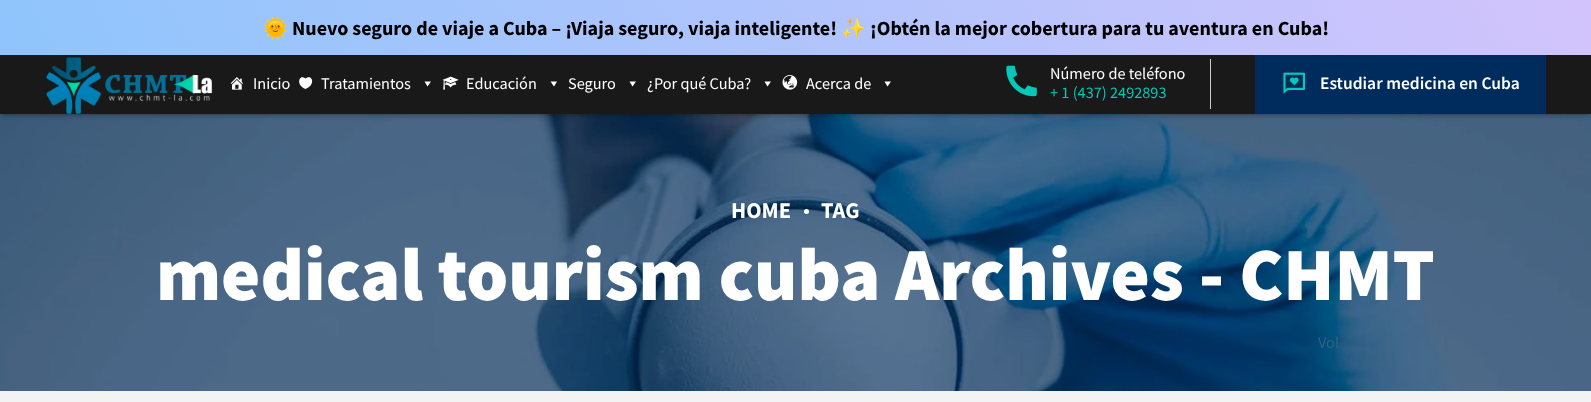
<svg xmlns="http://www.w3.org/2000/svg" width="1591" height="402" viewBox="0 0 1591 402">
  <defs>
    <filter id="blur1" x="-50%" y="-200%" width="200%" height="500%"><feGaussianBlur stdDeviation="3"/></filter>
    <linearGradient id="g1" gradientUnits="userSpaceOnUse" x1="197" y1="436" x2="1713" y2="-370"><stop offset="0" stop-color="#8ec5fc"/><stop offset="1" stop-color="#e0c3fc"/></linearGradient>
  </defs>
  <rect width="100%" height="100%" fill="#ffffff"/>
  <image x="0" y="114" width="1591" height="277" href="img7.png"/>
  <rect x="0" y="55" width="1591" height="59" fill="#000000" fill-opacity="0.5" filter="url(#blur1)"/>
  <rect x="0" y="0" width="1591" height="55" fill="url(#g1)"/>
  <text x="263" y="35" font-family="Noto Color Emoji" font-size="20" font-weight="bold" fill="#000000">🌞</text>
  <text x="292" y="35" font-family="Source Sans Pro" font-size="20" font-weight="bold" fill="#000000">Nuevo seguro de viaje a Cuba – ¡Viaja seguro, viaja inteligente!</text>
  <text x="841" y="35" font-family="Noto Color Emoji" font-size="20" font-weight="bold" fill="#000000">✨</text>
  <text x="870" y="35" font-family="Source Sans Pro" font-size="20" font-weight="bold" fill="#000000">¡Obtén la mejor cobertura para tu aventura en Cuba!</text>
  <rect x="0" y="55" width="1591" height="59" fill="#191919"/>
  <image x="46" y="57" width="167" height="57" href="img1.png"/>
  <image x="230" y="77" width="13" height="13" href="img2.png"/>
  <text x="253" y="89" font-family="Source Sans Pro" font-size="16.25" fill="#ffffff">Inicio</text>
  <path d="M305.5 89C316.5 84.5 312 73.5 305.5 78.5C299.5 73.5 295 84.5 305.5 89Z" fill="#ffffff"/>
  <text x="321" y="89" font-family="Source Sans Pro" font-size="16.25" fill="#ffffff">Tratamientos</text>
  <path d="M431 81.5L427.5 86.5L424.5 81.5Z" fill="#ffffff"/>
  <image x="442" y="76" width="17" height="14" href="img3.png"/>
  <text x="466" y="89" font-family="Source Sans Pro" font-size="16.25" fill="#ffffff">Educación</text>
  <path d="M557 81.5L554 86.5L550.5 81.5Z" fill="#ffffff"/>
  <text x="568" y="89" font-family="Source Sans Pro" font-size="16.25" fill="#ffffff">Seguro</text>
  <path d="M636 81.5L632.5 86.5L629.5 81.5Z" fill="#ffffff"/>
  <text x="647" y="89" font-family="Source Sans Pro" font-size="16.25" fill="#ffffff">¿Por qué Cuba?</text>
  <path d="M771 81.5L767.5 86.5L764.5 81.5Z" fill="#ffffff"/>
  <image x="782" y="75" width="16" height="15" href="img4.png"/>
  <text x="806" y="89" font-family="Source Sans Pro" font-size="16.25" fill="#ffffff">Acerca de</text>
  <path d="M891 81.5L887.5 86.5L884.5 81.5Z" fill="#ffffff"/>
  <image x="1006" y="65" width="31" height="32" href="img5.png"/>
  <text x="1050" y="79" font-family="Source Sans Pro" font-size="16.25" fill="#ffffff">Número de teléfono</text>
  <text x="1050" y="98" font-family="Source Sans Pro" font-size="16.25" fill="#02c9b8">+ 1 (437) 2492893</text>
  <rect x="1210" y="59" width="1" height="50" fill="#cccccc"/>
  <rect x="1255" y="55" width="291" height="59" fill="#002c5d"/>
  <image x="1283" y="72" width="23" height="22" href="img6.png"/>
  <text x="1320" y="89" font-family="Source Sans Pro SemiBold" font-size="17.5" font-weight="600" fill="#ffffff">Estudiar medicina en Cuba</text>
  <text x="731" y="218" font-family="Source Sans Pro" font-size="22.5" font-weight="bold" fill="#ffffff">HOME</text>
  <circle cx="806.5" cy="211.5" r="2.5" fill="#ffffff"/>
  <text x="821" y="218" font-family="Source Sans Pro" font-size="22.5" font-weight="bold" fill="#ffffff">TAG</text>
  <text x="156" y="300" font-family="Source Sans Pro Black" font-size="75" font-weight="900" fill="#ffffff">medical tourism cuba Archives - CHMT</text>
  <rect x="0" y="391" width="1591" height="11" fill="#f3f3f3"/>
  <text x="1318" y="348" font-family="Source Sans Pro" font-size="16.25" fill="#306187">Vol</text>
</svg>
